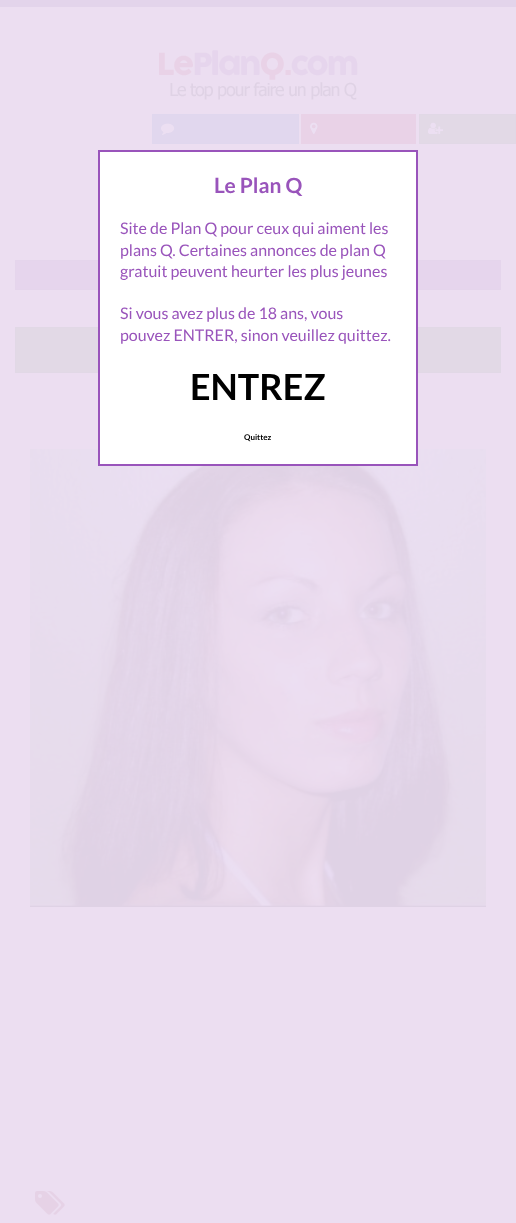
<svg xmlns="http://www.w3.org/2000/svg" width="516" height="1223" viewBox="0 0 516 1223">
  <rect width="100%" height="100%" fill="#ecdef1"/>
  <rect x="0" y="0" width="516" height="7" fill="#e3d4eb"/>
  <image x="159" y="50" width="199" height="50" href="img1.png"/>
  <rect x="152.5" y="114.5" width="146" height="29" fill="#e1d7ee" stroke="#e0d7ee"/>
  <image x="161" y="123" width="14" height="12" href="img2.png"/>
  <rect x="301.5" y="114.5" width="114" height="29" fill="#e9d2e7" stroke="#e9d2e7"/>
  <image x="310" y="122" width="8" height="12" href="img3.png"/>
  <rect x="419.5" y="114.5" width="96" height="29" fill="#e2d9e6" stroke="#e1d8e6"/>
  <image x="428" y="122" width="15" height="12" href="img4.png"/>
  <rect x="15.5" y="260.5" width="485" height="29" fill="#e6d5ed" stroke="#e5d5ec"/>
  <rect x="15.5" y="327.5" width="485" height="45" fill="#e2d9e6" stroke="#e1d8e6"/>
  <image x="30" y="449" width="456" height="458" href="img5.png"/>
  <rect x="99" y="151" width="318" height="314" fill="#ffffff" stroke="#9954bb" stroke-width="2"/>
  <text x="214" y="193" font-family="Lato" font-size="21" font-weight="bold" fill="#9954bb">Le Plan Q</text>
  <text x="120" y="234" font-family="Lato" font-size="16" fill="#9954bb">Site de Plan Q pour ceux qui aiment les</text>
  <text x="120" y="256" font-family="Lato" font-size="16" fill="#9954bb">plans Q. Certaines annonces de plan Q</text>
  <text x="120" y="277" font-family="Lato" font-size="16" fill="#9954bb">gratuit peuvent heurter les plus jeunes</text>
  <text x="120" y="319" font-family="Lato" font-size="16" fill="#9954bb">Si vous avez plus de 18 ans, vous</text>
  <text x="120" y="341" font-family="Lato" font-size="16" fill="#9954bb">pouvez ENTRER, sinon veuillez quittez.</text>
  <text x="190" y="400" font-family="Lato" font-size="36" font-weight="bold" fill="#000000">ENTREZ</text>
  <text x="244" y="440" font-family="Lato" font-size="8" font-weight="bold" fill="#000000">Quittez</text>
  <image x="35" y="1191" width="30" height="24" href="img6.png"/>
</svg>
